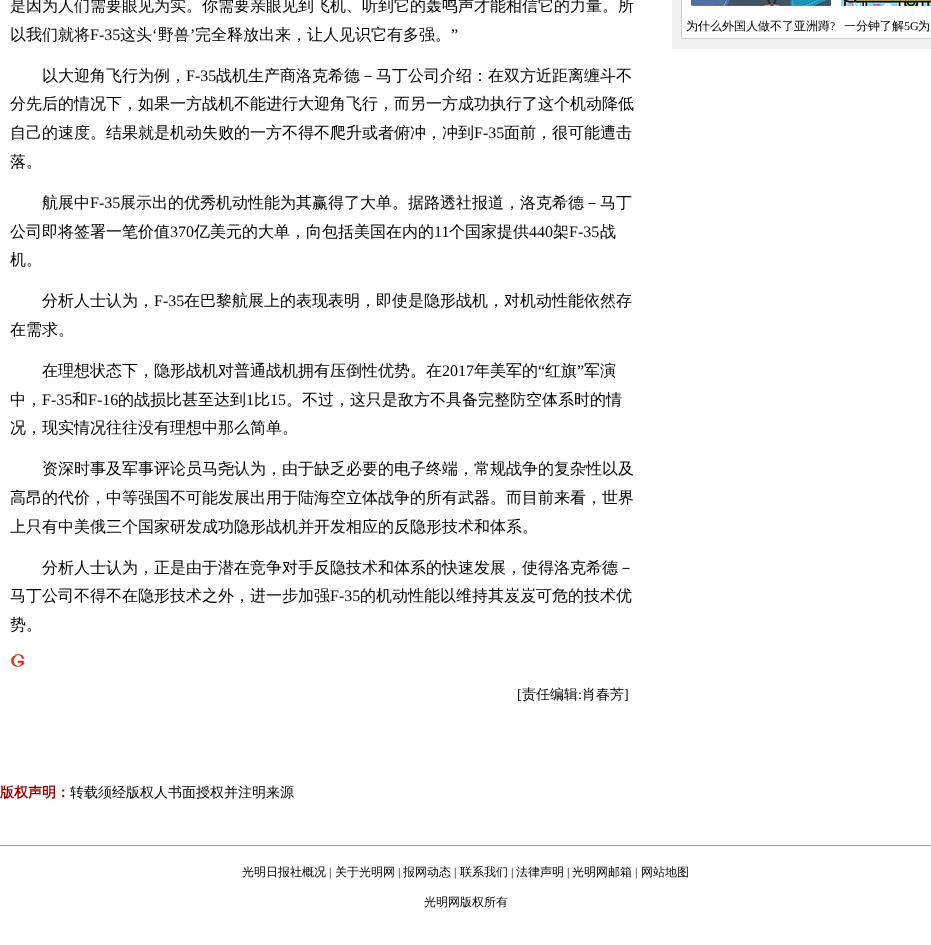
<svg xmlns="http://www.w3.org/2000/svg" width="931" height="945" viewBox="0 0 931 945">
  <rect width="100%" height="100%" fill="#ffffff"/>
  <text x="10" y="11" font-family="WenQuanYi Zen Hei" font-size="16" font-weight="500" fill="#000000">是因为人们需要眼见为实。你需要亲眼见到飞机、听到它的轰鸣声才能相信它的力量。所</text>
  <text x="10" y="40" font-family="WenQuanYi Zen Hei" font-size="16" font-weight="500" fill="#000000">以我们就将</text>
  <text x="90" y="40" font-family="Liberation Serif" font-size="16" fill="#000000">F-35</text>
  <text x="120" y="40" font-family="WenQuanYi Zen Hei" font-size="16" font-weight="500" fill="#000000">这头</text>
  <text x="152" y="40" font-family="Liberation Serif" font-size="16" fill="#000000">‘</text>
  <text x="158" y="40" font-family="WenQuanYi Zen Hei" font-size="16" font-weight="500" fill="#000000">野兽</text>
  <text x="190" y="40" font-family="Liberation Serif" font-size="16" fill="#000000">’</text>
  <text x="195" y="40" font-family="WenQuanYi Zen Hei" font-size="16" font-weight="500" fill="#000000">完全释放出来，让人见识它有多强。</text>
  <text x="451" y="40" font-family="Liberation Serif" font-size="16" fill="#000000">”</text>
  <text x="42" y="81" font-family="WenQuanYi Zen Hei" font-size="16" font-weight="500" fill="#000000">以大迎角飞行为例，</text>
  <text x="186" y="81" font-family="Liberation Serif" font-size="16" fill="#000000">F-35</text>
  <text x="216" y="81" font-family="WenQuanYi Zen Hei" font-size="16" font-weight="500" fill="#000000">战机生产商洛克希德－马丁公司介绍：在双方近距离缠斗不</text>
  <text x="10" y="109" font-family="WenQuanYi Zen Hei" font-size="16" font-weight="500" fill="#000000">分先后的情况下，如果一方战机不能进行大迎角飞行，而另一方成功执行了这个机动降低</text>
  <text x="10" y="138" font-family="WenQuanYi Zen Hei" font-size="16" font-weight="500" fill="#000000">自己的速度。结果就是机动失败的一方不得不爬升或者俯冲，冲到</text>
  <text x="474" y="138" font-family="Liberation Serif" font-size="16" fill="#000000">F-35</text>
  <text x="504" y="138" font-family="WenQuanYi Zen Hei" font-size="16" font-weight="500" fill="#000000">面前，很可能遭击</text>
  <text x="10" y="167" font-family="WenQuanYi Zen Hei" font-size="16" font-weight="500" fill="#000000">落。</text>
  <text x="42" y="208" font-family="WenQuanYi Zen Hei" font-size="16" font-weight="500" fill="#000000">航展中</text>
  <text x="90" y="208" font-family="Liberation Serif" font-size="16" fill="#000000">F-35</text>
  <text x="120" y="208" font-family="WenQuanYi Zen Hei" font-size="16" font-weight="500" fill="#000000">展示出的优秀机动性能为其赢得了大单。据路透社报道，洛克希德－马丁</text>
  <text x="10" y="237" font-family="WenQuanYi Zen Hei" font-size="16" font-weight="500" fill="#000000">公司即将签署一笔价值</text>
  <text x="170" y="237" font-family="Liberation Serif" font-size="16" fill="#000000">370</text>
  <text x="194" y="237" font-family="WenQuanYi Zen Hei" font-size="16" font-weight="500" fill="#000000">亿美元的大单，向包括美国在内的</text>
  <text x="434" y="237" font-family="Liberation Serif" font-size="16" fill="#000000">11</text>
  <text x="449" y="237" font-family="WenQuanYi Zen Hei" font-size="16" font-weight="500" fill="#000000">个国家提供</text>
  <text x="529" y="237" font-family="Liberation Serif" font-size="16" fill="#000000">440</text>
  <text x="553" y="237" font-family="WenQuanYi Zen Hei" font-size="16" font-weight="500" fill="#000000">架</text>
  <text x="569" y="237" font-family="Liberation Serif" font-size="16" fill="#000000">F-35</text>
  <text x="600" y="237" font-family="WenQuanYi Zen Hei" font-size="16" font-weight="500" fill="#000000">战</text>
  <text x="10" y="265" font-family="WenQuanYi Zen Hei" font-size="16" font-weight="500" fill="#000000">机。</text>
  <text x="42" y="306" font-family="WenQuanYi Zen Hei" font-size="16" font-weight="500" fill="#000000">分析人士认为，</text>
  <text x="154" y="306" font-family="Liberation Serif" font-size="16" fill="#000000">F-35</text>
  <text x="184" y="306" font-family="WenQuanYi Zen Hei" font-size="16" font-weight="500" fill="#000000">在巴黎航展上的表现表明，即使是隐形战机，对机动性能依然存</text>
  <text x="10" y="335" font-family="WenQuanYi Zen Hei" font-size="16" font-weight="500" fill="#000000">在需求。</text>
  <text x="42" y="376" font-family="WenQuanYi Zen Hei" font-size="16" font-weight="500" fill="#000000">在理想状态下，隐形战机对普通战机拥有压倒性优势。在</text>
  <text x="442" y="376" font-family="Liberation Serif" font-size="16" fill="#000000">2017</text>
  <text x="474" y="376" font-family="WenQuanYi Zen Hei" font-size="16" font-weight="500" fill="#000000">年美军的</text>
  <text x="538" y="376" font-family="Liberation Serif" font-size="16" fill="#000000">“</text>
  <text x="545" y="376" font-family="WenQuanYi Zen Hei" font-size="16" font-weight="500" fill="#000000">红旗</text>
  <text x="577" y="376" font-family="Liberation Serif" font-size="16" fill="#000000">”</text>
  <text x="584" y="376" font-family="WenQuanYi Zen Hei" font-size="16" font-weight="500" fill="#000000">军演</text>
  <text x="10" y="405" font-family="WenQuanYi Zen Hei" font-size="16" font-weight="500" fill="#000000">中，</text>
  <text x="42" y="405" font-family="Liberation Serif" font-size="16" fill="#000000">F-35</text>
  <text x="72" y="405" font-family="WenQuanYi Zen Hei" font-size="16" font-weight="500" fill="#000000">和</text>
  <text x="88" y="405" font-family="Liberation Serif" font-size="16" fill="#000000">F-16</text>
  <text x="118" y="405" font-family="WenQuanYi Zen Hei" font-size="16" font-weight="500" fill="#000000">的战损比甚至达到</text>
  <text x="246" y="405" font-family="Liberation Serif" font-size="16" fill="#000000">1</text>
  <text x="254" y="405" font-family="WenQuanYi Zen Hei" font-size="16" font-weight="500" fill="#000000">比</text>
  <text x="270" y="405" font-family="Liberation Serif" font-size="16" fill="#000000">15</text>
  <text x="286" y="405" font-family="WenQuanYi Zen Hei" font-size="16" font-weight="500" fill="#000000">。不过，这只是敌方不具备完整防空体系时的情</text>
  <text x="10" y="433" font-family="WenQuanYi Zen Hei" font-size="16" font-weight="500" fill="#000000">况，现实情况往往没有理想中那么简单。</text>
  <text x="42" y="474" font-family="WenQuanYi Zen Hei" font-size="16" font-weight="500" fill="#000000">资深时事及军事评论员马尧认为，由于缺乏必要的电子终端，常规战争的复杂性以及</text>
  <text x="10" y="503" font-family="WenQuanYi Zen Hei" font-size="16" font-weight="500" fill="#000000">高昂的代价，中等强国不可能发展出用于陆海空立体战争的所有武器。而目前来看，世界</text>
  <text x="10" y="532" font-family="WenQuanYi Zen Hei" font-size="16" font-weight="500" fill="#000000">上只有中美俄三个国家研发成功隐形战机并开发相应的反隐形技术和体系。</text>
  <text x="42" y="573" font-family="WenQuanYi Zen Hei" font-size="16" font-weight="500" fill="#000000">分析人士认为，正是由于潜在竞争对手反隐技术和体系的快速发展，使得洛克希德－</text>
  <text x="10" y="601" font-family="WenQuanYi Zen Hei" font-size="16" font-weight="500" fill="#000000">马丁公司不得不在隐形技术之外，进一步加强</text>
  <text x="330" y="601" font-family="Liberation Serif" font-size="16" fill="#000000">F-35</text>
  <text x="360" y="601" font-family="WenQuanYi Zen Hei" font-size="16" font-weight="500" fill="#000000">的机动性能以维持其岌岌可危的技术优</text>
  <text x="10" y="630" font-family="WenQuanYi Zen Hei" font-size="16" font-weight="500" fill="#000000">势。</text>
  <image x="11" y="654" width="14" height="13" href="img1.png"/>
  <text x="517" y="699" font-family="Liberation Serif" font-size="14" fill="#000000">[</text>
  <text x="522" y="699" font-family="WenQuanYi Zen Hei" font-size="14" font-weight="500" fill="#000000">责任编辑</text>
  <text x="578" y="699" font-family="Liberation Serif" font-size="14" fill="#000000">:</text>
  <text x="582" y="699" font-family="WenQuanYi Zen Hei" font-size="14" font-weight="500" fill="#000000">肖春芳</text>
  <text x="624" y="699" font-family="Liberation Serif" font-size="14" fill="#000000">]</text>
  <text x="0" y="797" font-family="WenQuanYi Zen Hei" font-size="14" font-weight="bold" fill="#9a0000">版权声明：</text>
  <text x="70" y="797" font-family="WenQuanYi Zen Hei" font-size="14" font-weight="500" fill="#000000">转载须经版权人书面授权并注明来源</text>
  <rect x="672" y="0" width="259" height="49" fill="#f0f0f0"/>
  <rect x="681.5" y="-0.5" width="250" height="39" fill="#ffffff" stroke="#cccccc"/>
  <image x="691" y="0" width="140" height="6" href="img2.png"/>
  <text x="686" y="30" font-family="WenQuanYi Zen Hei" font-size="12" font-weight="500" fill="#000000">为什么外国人做不了亚洲蹲</text>
  <text x="830" y="30" font-family="Liberation Serif" font-size="12" fill="#000000">?</text>
  <image x="841" y="0" width="90" height="6" href="img3.png"/>
  <text x="844" y="30" font-family="WenQuanYi Zen Hei" font-size="12" font-weight="500" fill="#000000">一分钟了解</text>
  <text x="904" y="30" font-family="Liberation Serif" font-size="12" fill="#000000">5G</text>
  <text x="918" y="30" font-family="WenQuanYi Zen Hei" font-size="12" font-weight="500" fill="#000000">为</text>
  <rect x="0" y="845" width="931" height="1" fill="#999999"/>
  <text x="242" y="876" font-family="WenQuanYi Zen Hei" font-size="12" font-weight="500" fill="#000000">光明日报社概况</text>
  <text x="329" y="876" font-family="Liberation Serif" font-size="12" fill="#000000">|</text>
  <text x="335" y="876" font-family="WenQuanYi Zen Hei" font-size="12" font-weight="500" fill="#000000">关于光明网</text>
  <text x="398" y="876" font-family="Liberation Serif" font-size="12" fill="#000000">|</text>
  <text x="403" y="876" font-family="WenQuanYi Zen Hei" font-size="12" font-weight="500" fill="#000000">报网动态</text>
  <text x="454" y="876" font-family="Liberation Serif" font-size="12" fill="#000000">|</text>
  <text x="460" y="876" font-family="WenQuanYi Zen Hei" font-size="12" font-weight="500" fill="#000000">联系我们</text>
  <text x="511" y="876" font-family="Liberation Serif" font-size="12" fill="#000000">|</text>
  <text x="516" y="876" font-family="WenQuanYi Zen Hei" font-size="12" font-weight="500" fill="#000000">法律声明</text>
  <text x="567" y="876" font-family="Liberation Serif" font-size="12" fill="#000000">|</text>
  <text x="572" y="876" font-family="WenQuanYi Zen Hei" font-size="12" font-weight="500" fill="#000000">光明网邮箱</text>
  <text x="635" y="876" font-family="Liberation Serif" font-size="12" fill="#000000">|</text>
  <text x="641" y="876" font-family="WenQuanYi Zen Hei" font-size="12" font-weight="500" fill="#000000">网站地图</text>
  <text x="424" y="906" font-family="WenQuanYi Zen Hei" font-size="12" font-weight="500" fill="#000000">光明网版权所有</text>
</svg>
